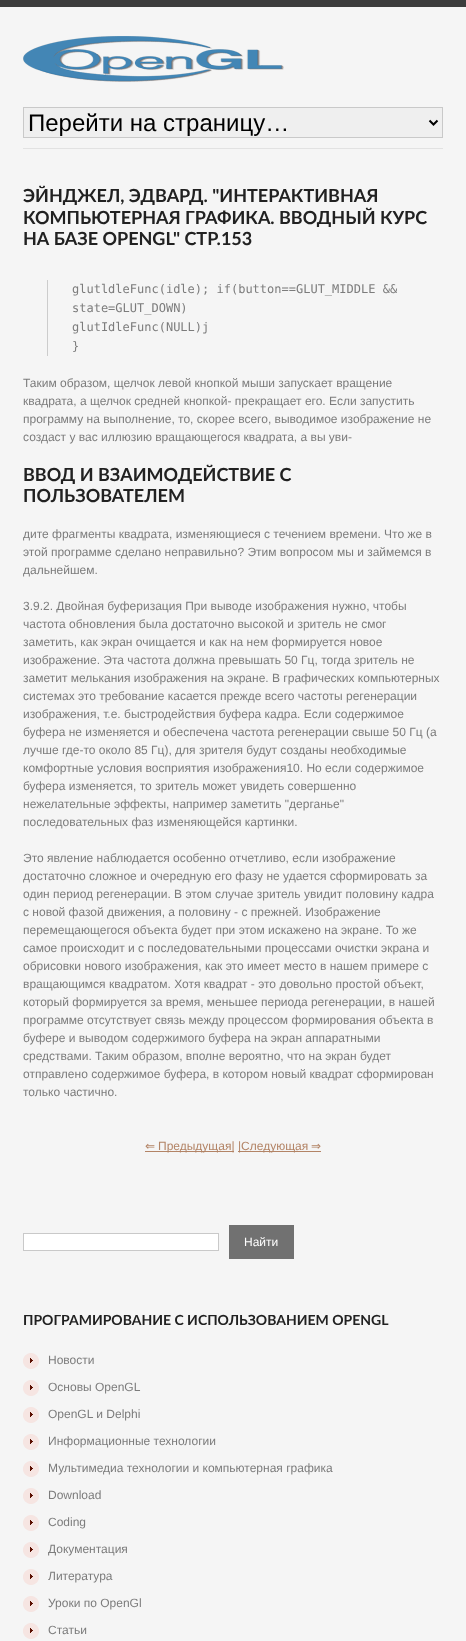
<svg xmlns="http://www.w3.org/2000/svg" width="466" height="1641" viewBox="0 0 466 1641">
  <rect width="100%" height="100%" fill="#f5f5f5"/>
  <rect x="0" y="0" width="466" height="7" fill="#3c3c3c"/>
  <image x="23" y="36" width="261" height="46" href="img1.png"/>
  <rect x="23.5" y="107.5" width="419" height="30" fill="#efefef" stroke="#c9c9c9"/>
  <path d="M429.5 120.5L433.5 124.5L437.5 120.5" fill="none" stroke="#000000" stroke-width="2"/>
  <text x="28" y="131" font-family="Liberation Sans" font-size="24" fill="#000000">Перейти на страницу…</text>
  <rect x="23" y="148" width="420" height="1" fill="#e2e2e2"/>
  <text x="23" y="202" font-family="Lato" font-size="18" font-weight="bold" fill="#212121">ЭЙНДЖЕЛ, ЭДВАРД. "ИНТЕРАКТИВНАЯ</text>
  <text x="23" y="224" font-family="Lato" font-size="18" font-weight="bold" fill="#212121">КОМПЬЮТЕРНАЯ ГРАФИКА. ВВОДНЫЙ КУРС</text>
  <text x="23" y="245" font-family="Lato" font-size="18" font-weight="bold" fill="#212121">НА БАЗЕ OPENGL" СТР.153</text>
  <rect x="47" y="280" width="1" height="76" fill="#cccccc"/>
  <text x="72" y="293" font-family="DejaVu Sans Mono" font-size="12" fill="#7c7c7c">glutldleFunc(idle); if(button==GLUT_MIDDLE &amp;&amp;</text>
  <text x="72" y="312" font-family="DejaVu Sans Mono" font-size="12" fill="#7c7c7c">state=GLUT_DOWN)</text>
  <text x="72" y="331" font-family="DejaVu Sans Mono" font-size="12" fill="#7c7c7c">glutIdleFunc(NULL)j</text>
  <text x="72" y="350" font-family="DejaVu Sans Mono" font-size="12" fill="#7c7c7c">}</text>
  <text x="23" y="387" font-family="Liberation Sans" font-size="12" fill="#7c7c7c">Таким образом, щелчок левой кнопкой мыши запускает вращение</text>
  <text x="23" y="405" font-family="Liberation Sans" font-size="12" fill="#7c7c7c">квадрата, а щелчок средней кнопкой- прекращает его. Если запустить</text>
  <text x="23" y="423" font-family="Liberation Sans" font-size="12" fill="#7c7c7c">программу на выполнение, то, скорее всего, выводимое изображение не</text>
  <text x="23" y="441" font-family="Liberation Sans" font-size="12" fill="#7c7c7c">создаст у вас иллюзию вращающегося квадрата, а вы уви-</text>
  <text x="23" y="481" font-family="Lato" font-size="18" font-weight="bold" fill="#212121">ВВОД И ВЗАИМОДЕЙСТВИЕ С</text>
  <text x="23" y="502" font-family="Lato" font-size="18" font-weight="bold" fill="#212121">ПОЛЬЗОВАТЕЛЕМ</text>
  <text x="23" y="538" font-family="Liberation Sans" font-size="12" fill="#7c7c7c">дите фрагменты квадрата, изменяющиеся с течением времени. Что же в</text>
  <text x="23" y="556" font-family="Liberation Sans" font-size="12" fill="#7c7c7c">этой программе сделано неправильно? Этим вопросом мы и займемся в</text>
  <text x="23" y="574" font-family="Liberation Sans" font-size="12" fill="#7c7c7c">дальнейшем.</text>
  <text x="23" y="610" font-family="Liberation Sans" font-size="12" fill="#7c7c7c">3.9.2. Двойная буферизация При выводе изображения нужно, чтобы</text>
  <text x="23" y="628" font-family="Liberation Sans" font-size="12" fill="#7c7c7c">частота обновления была достаточно высокой и зритель не смог</text>
  <text x="23" y="646" font-family="Liberation Sans" font-size="12" fill="#7c7c7c">заметить, как экран очищается и как на нем формируется новое</text>
  <text x="23" y="664" font-family="Liberation Sans" font-size="12" fill="#7c7c7c">изображение. Эта частота должна превышать 50 Гц, тогда зритель не</text>
  <text x="23" y="682" font-family="Liberation Sans" font-size="12" fill="#7c7c7c">заметит мелькания изображения на экране. В графических компьютерных</text>
  <text x="23" y="700" font-family="Liberation Sans" font-size="12" fill="#7c7c7c">системах это требование касается прежде всего частоты регенерации</text>
  <text x="23" y="718" font-family="Liberation Sans" font-size="12" fill="#7c7c7c">изображения, т.е. быстродействия буфера кадра. Если содержимое</text>
  <text x="23" y="736" font-family="Liberation Sans" font-size="12" fill="#7c7c7c">буфера не изменяется и обеспечена частота регенерации свыше 50 Гц (а</text>
  <text x="23" y="754" font-family="Liberation Sans" font-size="12" fill="#7c7c7c">лучше где-то около 85 Гц), для зрителя будут созданы необходимые</text>
  <text x="23" y="772" font-family="Liberation Sans" font-size="12" fill="#7c7c7c">комфортные условия восприятия изображения10. Но если содержимое</text>
  <text x="23" y="790" font-family="Liberation Sans" font-size="12" fill="#7c7c7c">буфера изменяется, то зритель может увидеть совершенно</text>
  <text x="23" y="808" font-family="Liberation Sans" font-size="12" fill="#7c7c7c">нежелательные эффекты, например заметить "дерганье"</text>
  <text x="23" y="826" font-family="Liberation Sans" font-size="12" fill="#7c7c7c">последовательных фаз изменяющейся картинки.</text>
  <text x="23" y="862" font-family="Liberation Sans" font-size="12" fill="#7c7c7c">Это явление наблюдается особенно отчетливо, если изображение</text>
  <text x="23" y="880" font-family="Liberation Sans" font-size="12" fill="#7c7c7c">достаточно сложное и очередную его фазу не удается сформировать за</text>
  <text x="23" y="898" font-family="Liberation Sans" font-size="12" fill="#7c7c7c">один период регенерации. В этом случае зритель увидит половину кадра</text>
  <text x="23" y="916" font-family="Liberation Sans" font-size="12" fill="#7c7c7c">с новой фазой движения, а половину - с прежней. Изображение</text>
  <text x="23" y="934" font-family="Liberation Sans" font-size="12" fill="#7c7c7c">перемещающегося объекта будет при этом искажено на экране. То же</text>
  <text x="23" y="952" font-family="Liberation Sans" font-size="12" fill="#7c7c7c">самое происходит и с последовательными процессами очистки экрана и</text>
  <text x="23" y="970" font-family="Liberation Sans" font-size="12" fill="#7c7c7c">обрисовки нового изображения, как это имеет место в нашем примере с</text>
  <text x="23" y="988" font-family="Liberation Sans" font-size="12" fill="#7c7c7c">вращающимся квадратом. Хотя квадрат - это довольно простой объект,</text>
  <text x="23" y="1006" font-family="Liberation Sans" font-size="12" fill="#7c7c7c">который формируется за время, меньшее периода регенерации, в нашей</text>
  <text x="23" y="1024" font-family="Liberation Sans" font-size="12" fill="#7c7c7c">программе отсутствует связь между процессом формирования объекта в</text>
  <text x="23" y="1042" font-family="Liberation Sans" font-size="12" fill="#7c7c7c">буфере и выводом содержимого буфера на экран аппаратными</text>
  <text x="23" y="1060" font-family="Liberation Sans" font-size="12" fill="#7c7c7c">средствами. Таким образом, вполне вероятно, что на экран будет</text>
  <text x="23" y="1078" font-family="Liberation Sans" font-size="12" fill="#7c7c7c">отправлено содержимое буфера, в котором новый квадрат сформирован</text>
  <text x="23" y="1096" font-family="Liberation Sans" font-size="12" fill="#7c7c7c">только частично.</text>
  <text x="145" y="1150" font-family="DejaVu Sans" font-size="12" fill="#b38466">⇐</text>
  <rect x="145" y="1151" width="89" height="1" fill="#b38466"/>
  <text x="158" y="1150" font-family="Liberation Sans" font-size="12" fill="#b38466">Предыдущая|</text>
  <rect x="238" y="1151" width="83" height="1" fill="#b38466"/>
  <text x="238" y="1150" font-family="Liberation Sans" font-size="12" fill="#b38466">|Следующая</text>
  <text x="311" y="1150" font-family="DejaVu Sans" font-size="12" fill="#b38466">⇒</text>
  <rect x="23.5" y="1233.5" width="195" height="17" fill="#ffffff" stroke="#c9c9c9"/>
  <rect x="229" y="1225" width="65" height="34" fill="#717171"/>
  <text x="244" y="1246" font-family="Liberation Sans" font-size="12" fill="#ffffff">Найти</text>
  <text x="23" y="1325" font-family="Lato" font-size="14" font-weight="bold" fill="#212121">ПРОГРАМИРОВАНИЕ С ИСПОЛЬЗОВАНИЕМ OPENGL</text>
  <image x="23" y="1353" width="16" height="16" href="img2.png"/>
  <text x="48" y="1364" font-family="Liberation Sans" font-size="12" fill="#7c7c7c">Новости</text>
  <image x="23" y="1380" width="16" height="16" href="img2.png"/>
  <text x="48" y="1391" font-family="Liberation Sans" font-size="12" fill="#7c7c7c">Основы OpenGL</text>
  <image x="23" y="1407" width="16" height="16" href="img2.png"/>
  <text x="48" y="1418" font-family="Liberation Sans" font-size="12" fill="#7c7c7c">OpenGL и Delphi</text>
  <image x="23" y="1434" width="16" height="16" href="img2.png"/>
  <text x="48" y="1445" font-family="Liberation Sans" font-size="12" fill="#7c7c7c">Информационные технологии</text>
  <image x="23" y="1461" width="16" height="16" href="img2.png"/>
  <text x="48" y="1472" font-family="Liberation Sans" font-size="12" fill="#7c7c7c">Мультимедиа технологии и компьютерная графика</text>
  <image x="23" y="1488" width="16" height="16" href="img2.png"/>
  <text x="48" y="1499" font-family="Liberation Sans" font-size="12" fill="#7c7c7c">Download</text>
  <image x="23" y="1515" width="16" height="16" href="img2.png"/>
  <text x="48" y="1526" font-family="Liberation Sans" font-size="12" fill="#7c7c7c">Coding</text>
  <image x="23" y="1542" width="16" height="16" href="img2.png"/>
  <text x="48" y="1553" font-family="Liberation Sans" font-size="12" fill="#7c7c7c">Документация</text>
  <image x="23" y="1569" width="16" height="16" href="img2.png"/>
  <text x="48" y="1580" font-family="Liberation Sans" font-size="12" fill="#7c7c7c">Литература</text>
  <image x="23" y="1596" width="16" height="16" href="img2.png"/>
  <text x="48" y="1607" font-family="Liberation Sans" font-size="12" fill="#7c7c7c">Уроки по OpenGl</text>
  <image x="23" y="1623" width="16" height="16" href="img2.png"/>
  <text x="48" y="1634" font-family="Liberation Sans" font-size="12" fill="#7c7c7c">Статьи</text>
</svg>
